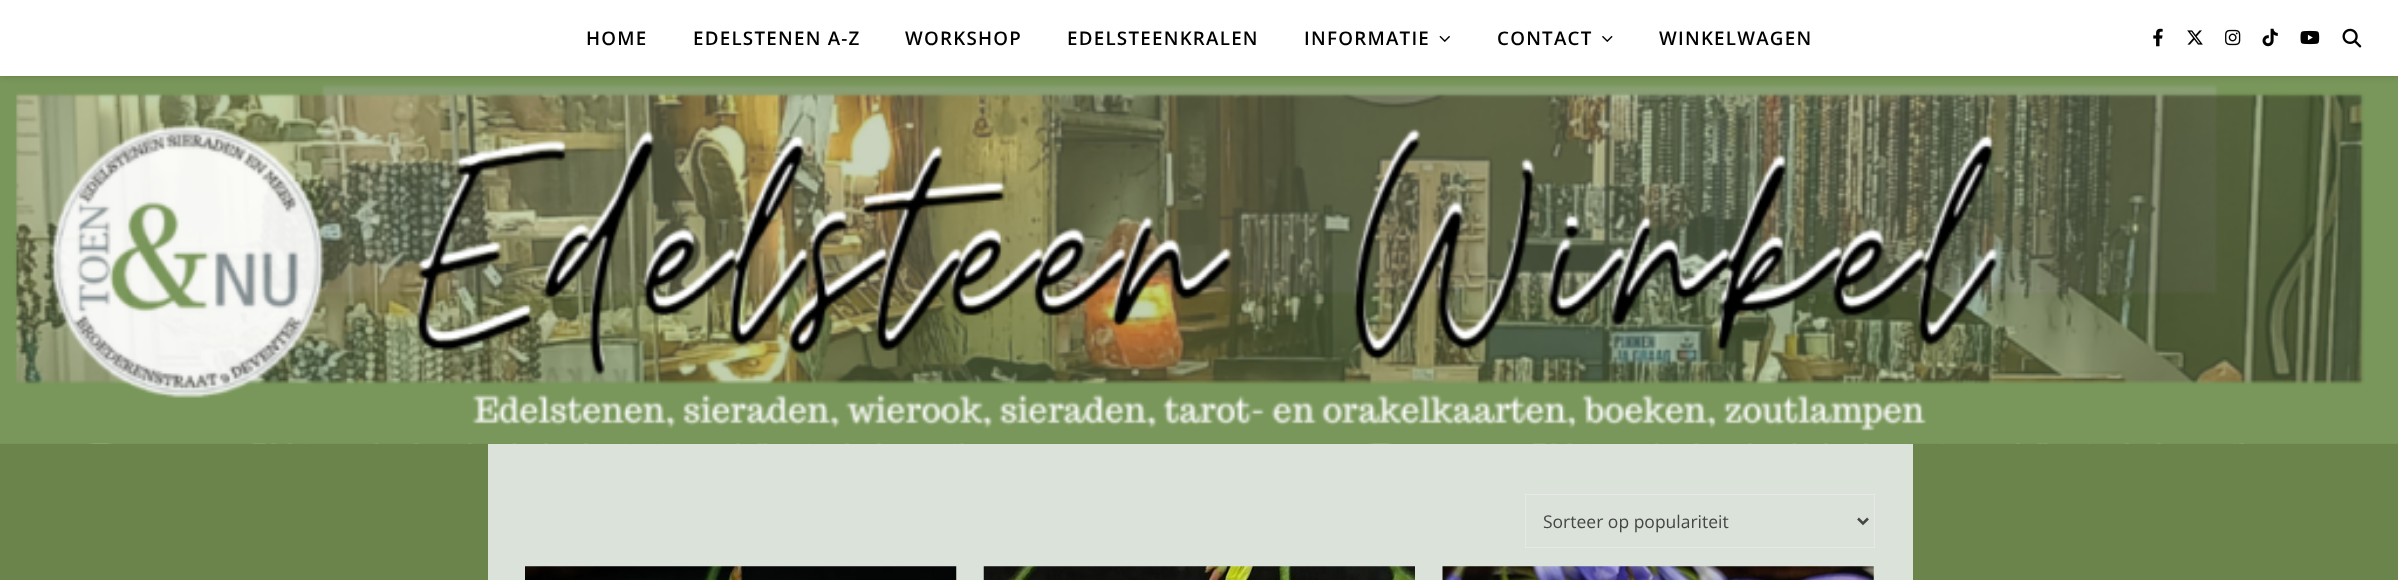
<svg xmlns="http://www.w3.org/2000/svg" width="2398" height="580" viewBox="0 0 2398 580">
  <defs>
    <filter id="blur1" x="-50%" y="-200%" width="200%" height="500%"><feGaussianBlur stdDeviation="3"/></filter>
  </defs>
  <rect width="100%" height="100%" fill="#6a844c"/>
  <image x="0" y="76" width="2398" height="368" href="img9.png"/>
  <image x="0" y="76" width="2398" height="368" href="img10.png"/>
  <rect x="0" y="1" width="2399" height="77" fill="#000000" fill-opacity="0.1" filter="url(#blur1)"/>
  <rect x="0" y="0" width="2398" height="76" fill="#ffffff"/>
  <text x="586" y="45" font-family="Open Sans" font-size="18.75" font-weight="600" letter-spacing="1.25" fill="#000000">HOME</text>
  <text x="693" y="45" font-family="Open Sans" font-size="18.75" font-weight="600" letter-spacing="1.25" fill="#000000">EDELSTENEN A-Z</text>
  <text x="905" y="45" font-family="Open Sans" font-size="18.75" font-weight="600" letter-spacing="1.25" fill="#000000">WORKSHOP</text>
  <text x="1067" y="45" font-family="Open Sans" font-size="18.75" font-weight="600" letter-spacing="1.25" fill="#000000">EDELSTEENKRALEN</text>
  <text x="1304" y="45" font-family="Open Sans" font-size="18.75" font-weight="600" letter-spacing="1.25" fill="#000000">INFORMATIE</text>
  <image x="1439" y="35" width="11" height="7" href="img1.png"/>
  <text x="1497" y="45" font-family="Open Sans" font-size="18.75" font-weight="600" letter-spacing="1.25" fill="#000000">CONTACT</text>
  <image x="1602" y="35" width="11" height="7" href="img2.png"/>
  <text x="1659" y="45" font-family="Open Sans" font-size="18.75" font-weight="600" letter-spacing="1.25" fill="#000000">WINKELWAGEN</text>
  <image x="2153" y="28" width="10" height="19" href="img3.png"/>
  <image x="2187" y="30" width="16" height="15" href="img4.png"/>
  <image x="2225" y="29" width="16" height="17" href="img5.png"/>
  <image x="2262" y="28" width="16" height="19" href="img6.png"/>
  <image x="2300" y="30" width="20" height="15" href="img7.png"/>
  <image x="2342" y="28" width="20" height="20" href="img8.png"/>
  <rect x="488" y="444" width="1425" height="136" fill="#dae2d9"/>
  <rect x="1525.5" y="494.5" width="349" height="53" fill="none" stroke="#e8e8e8"/>
  <path d="M1858 518.5L1863 523.5L1868 518.5" fill="none" stroke="#464646" stroke-width="2.5"/>
  <text x="1543" y="528" font-family="Open Sans" font-size="17.5" fill="#464646">Sorteer op populariteit</text>
  <image x="525" y="566" width="432" height="14" href="img11.png"/>
  <image x="983" y="566" width="432" height="14" href="img12.png"/>
  <image x="1442" y="566" width="432" height="14" href="img13.png"/>
</svg>
